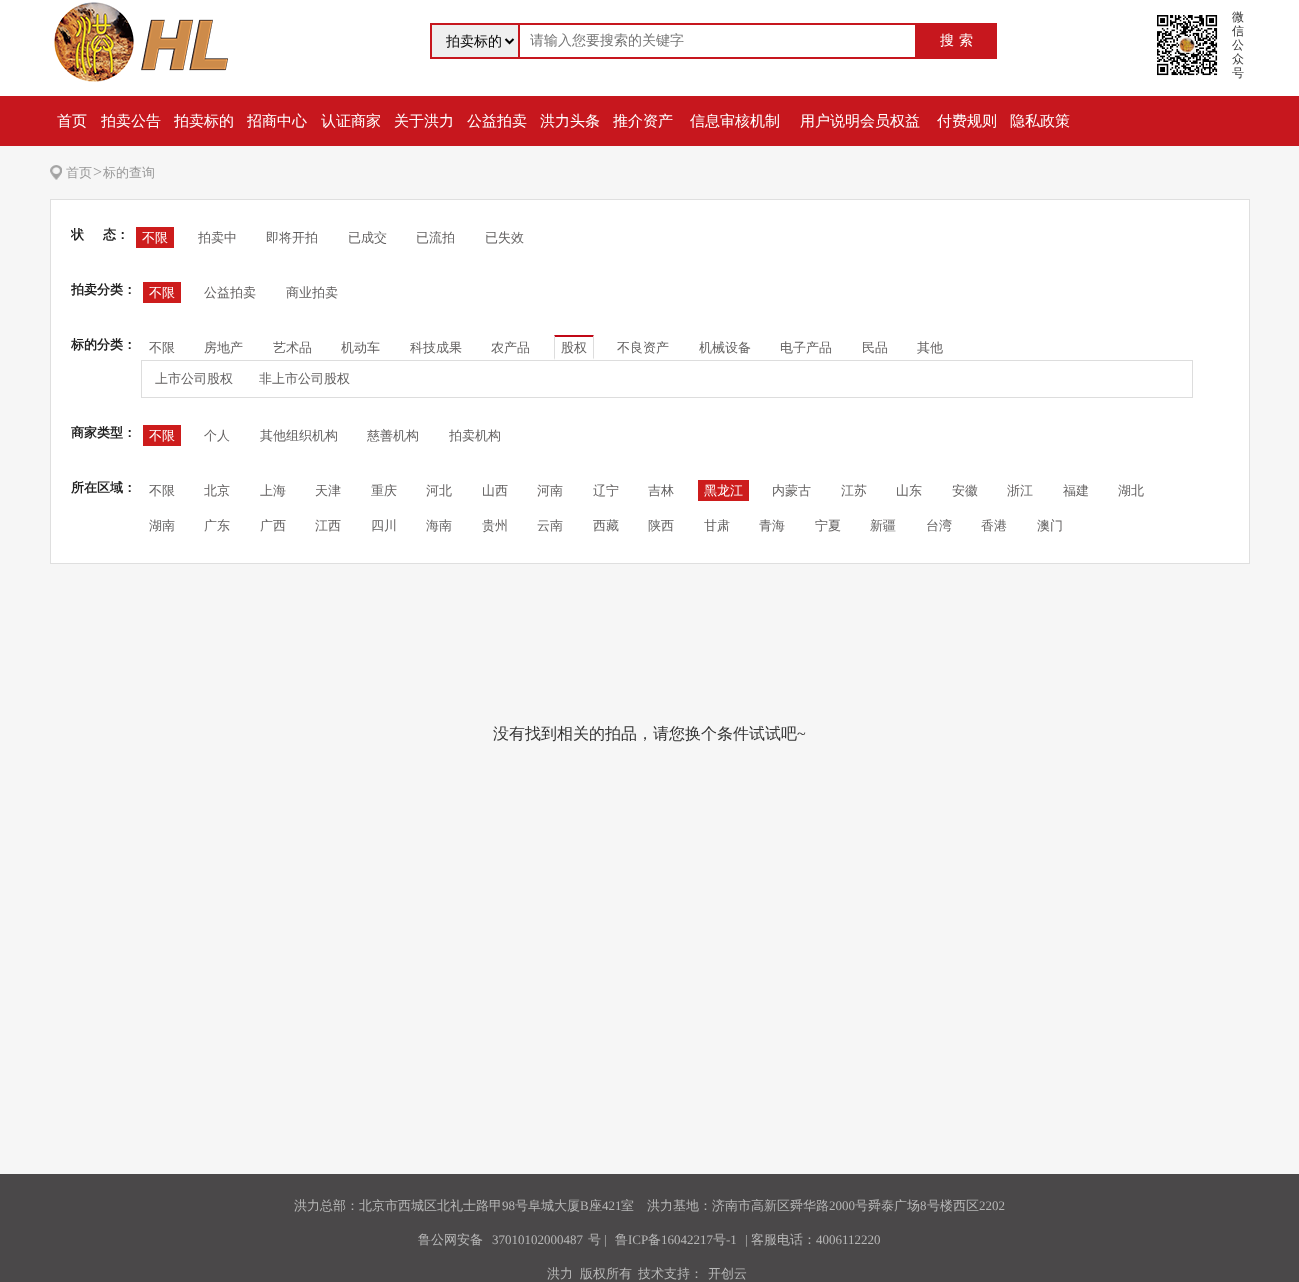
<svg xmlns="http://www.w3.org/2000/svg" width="1299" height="1282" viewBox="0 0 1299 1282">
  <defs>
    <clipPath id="clip1"><rect x="446" y="32" width="56" height="18"/></clipPath>
    <clipPath id="clip2"><rect x="71" y="220" width="1158" height="35"/></clipPath>
    <clipPath id="clip3"><rect x="71" y="275" width="1158" height="35"/></clipPath>
    <clipPath id="clip4"><rect x="71" y="330" width="1158" height="35"/></clipPath>
  </defs>
  <rect width="100%" height="100%" fill="#f6f6f6"/>
  <rect x="0" y="0" width="1299" height="96" fill="#ffffff"/>
  <image x="54" y="2" width="174" height="80" href="img1.png"/>
  <rect x="432" y="25" width="86" height="32" fill="#efefef"/>
  <rect x="430" y="23" width="88" height="2" fill="#c7171e"/>
  <rect x="430" y="57" width="88" height="2" fill="#c7171e"/>
  <rect x="430" y="23" width="2" height="36" fill="#c7171e"/>
  <path d="M505.5 39L509.5 43L513.5 39" fill="none" stroke="#000000" stroke-width="2"/>
  <g clip-path="url(#clip1)">
    <text x="446" y="46" font-family="WenQuanYi Zen Hei" font-size="14" font-weight="500" fill="#000000">拍卖标的</text>
  </g>
  <rect x="519" y="24" width="397" height="34" fill="none" stroke="#c7171e" stroke-width="2"/>
  <text x="530" y="45" font-family="WenQuanYi Zen Hei" font-size="14" font-weight="500" fill="#757575">请输入您要搜索的关键字</text>
  <rect x="917" y="23" width="80" height="36" fill="#c7171e"/>
  <text x="940" y="45" font-family="WenQuanYi Zen Hei" font-size="14" font-weight="500" letter-spacing="5" fill="#ffffff">搜索</text>
  <image x="1157" y="15" width="61" height="61" href="img2.png"/>
  <text x="1232" y="21" font-family="WenQuanYi Zen Hei" font-size="12" font-weight="500" fill="#333333">微</text>
  <text x="1232" y="35" font-family="WenQuanYi Zen Hei" font-size="12" font-weight="500" fill="#333333">信</text>
  <text x="1232" y="49" font-family="WenQuanYi Zen Hei" font-size="12" font-weight="500" fill="#333333">公</text>
  <text x="1232" y="63" font-family="WenQuanYi Zen Hei" font-size="12" font-weight="500" fill="#333333">众</text>
  <text x="1232" y="77" font-family="WenQuanYi Zen Hei" font-size="12" font-weight="500" fill="#333333">号</text>
  <rect x="0" y="96" width="1299" height="50" fill="#c7171e"/>
  <text x="57" y="126" font-family="WenQuanYi Zen Hei" font-size="15" font-weight="500" fill="#ffffff">首页</text>
  <text x="101" y="126" font-family="WenQuanYi Zen Hei" font-size="15" font-weight="500" fill="#ffffff">拍卖公告</text>
  <text x="174" y="126" font-family="WenQuanYi Zen Hei" font-size="15" font-weight="500" fill="#ffffff">拍卖标的</text>
  <text x="247" y="126" font-family="WenQuanYi Zen Hei" font-size="15" font-weight="500" fill="#ffffff">招商中心</text>
  <text x="321" y="126" font-family="WenQuanYi Zen Hei" font-size="15" font-weight="500" fill="#ffffff">认证商家</text>
  <text x="394" y="126" font-family="WenQuanYi Zen Hei" font-size="15" font-weight="500" fill="#ffffff">关于洪力</text>
  <text x="467" y="126" font-family="WenQuanYi Zen Hei" font-size="15" font-weight="500" fill="#ffffff">公益拍卖</text>
  <text x="540" y="126" font-family="WenQuanYi Zen Hei" font-size="15" font-weight="500" fill="#ffffff">洪力头条</text>
  <text x="613" y="126" font-family="WenQuanYi Zen Hei" font-size="15" font-weight="500" fill="#ffffff">推介资产</text>
  <text x="690" y="126" font-family="WenQuanYi Zen Hei" font-size="15" font-weight="500" fill="#ffffff">信息审核机制</text>
  <text x="800" y="126" font-family="WenQuanYi Zen Hei" font-size="15" font-weight="500" fill="#ffffff">用户说明会员权益</text>
  <text x="937" y="126" font-family="WenQuanYi Zen Hei" font-size="15" font-weight="500" fill="#ffffff">付费规则</text>
  <text x="1010" y="126" font-family="WenQuanYi Zen Hei" font-size="15" font-weight="500" fill="#ffffff">隐私政策</text>
  <image x="50" y="165" width="12" height="15" href="img3.png"/>
  <text x="66" y="177" font-family="WenQuanYi Zen Hei" font-size="13" font-weight="500" fill="#999999">首页</text>
  <text x="93" y="177" font-family="Liberation Serif" font-size="16" fill="#999999">&gt;</text>
  <text x="103" y="177" font-family="WenQuanYi Zen Hei" font-size="13" font-weight="500" fill="#999999">标的查询</text>
  <rect x="50.5" y="199.5" width="1199" height="364" fill="#ffffff" stroke="#dfdfdf"/>
  <g clip-path="url(#clip2)">
    <text x="71" y="239" font-family="WenQuanYi Zen Hei" font-size="13" font-weight="bold" fill="#212121">状</text>
  </g>
  <text x="103" y="239" font-family="WenQuanYi Zen Hei" font-size="13" font-weight="bold" fill="#212121">态：</text>
  <rect x="136" y="227" width="38" height="21" fill="#cd1c1c"/>
  <text x="142" y="242" font-family="WenQuanYi Zen Hei" font-size="13" font-weight="500" fill="#ffffff">不限</text>
  <text x="198" y="242" font-family="WenQuanYi Zen Hei" font-size="13" font-weight="500" fill="#636161">拍卖中</text>
  <text x="266" y="242" font-family="WenQuanYi Zen Hei" font-size="13" font-weight="500" fill="#636161">即将开拍</text>
  <text x="348" y="242" font-family="WenQuanYi Zen Hei" font-size="13" font-weight="500" fill="#636161">已成交</text>
  <text x="416" y="242" font-family="WenQuanYi Zen Hei" font-size="13" font-weight="500" fill="#636161">已流拍</text>
  <text x="485" y="242" font-family="WenQuanYi Zen Hei" font-size="13" font-weight="500" fill="#636161">已失效</text>
  <g clip-path="url(#clip3)">
    <text x="71" y="294" font-family="WenQuanYi Zen Hei" font-size="13" font-weight="bold" fill="#212121">拍卖分类：</text>
  </g>
  <rect x="143" y="282" width="38" height="21" fill="#cd1c1c"/>
  <text x="149" y="297" font-family="WenQuanYi Zen Hei" font-size="13" font-weight="500" fill="#ffffff">不限</text>
  <text x="204" y="297" font-family="WenQuanYi Zen Hei" font-size="13" font-weight="500" fill="#636161">公益拍卖</text>
  <text x="286" y="297" font-family="WenQuanYi Zen Hei" font-size="13" font-weight="500" fill="#636161">商业拍卖</text>
  <g clip-path="url(#clip4)">
    <text x="71" y="349" font-family="WenQuanYi Zen Hei" font-size="13" font-weight="bold" fill="#212121">标的分类：</text>
  </g>
  <text x="149" y="352" font-family="WenQuanYi Zen Hei" font-size="13" font-weight="500" fill="#636161">不限</text>
  <text x="204" y="352" font-family="WenQuanYi Zen Hei" font-size="13" font-weight="500" fill="#636161">房地产</text>
  <text x="273" y="352" font-family="WenQuanYi Zen Hei" font-size="13" font-weight="500" fill="#636161">艺术品</text>
  <text x="341" y="352" font-family="WenQuanYi Zen Hei" font-size="13" font-weight="500" fill="#636161">机动车</text>
  <text x="410" y="352" font-family="WenQuanYi Zen Hei" font-size="13" font-weight="500" fill="#636161">科技成果</text>
  <text x="491" y="352" font-family="WenQuanYi Zen Hei" font-size="13" font-weight="500" fill="#636161">农产品</text>
  <text x="561" y="352" font-family="WenQuanYi Zen Hei" font-size="13" font-weight="500" fill="#636161">股权</text>
  <path d="M554 335H594L593 337H555Z" fill="#c10816"/>
  <path d="M594 335V360L593 358V337Z" fill="#dddddd"/>
  <path d="M594 360H554L555 358H593Z" fill="#ffffff"/>
  <path d="M554 360V335L555 337V358Z" fill="#dddddd"/>
  <text x="617" y="352" font-family="WenQuanYi Zen Hei" font-size="13" font-weight="500" fill="#636161">不良资产</text>
  <text x="699" y="352" font-family="WenQuanYi Zen Hei" font-size="13" font-weight="500" fill="#636161">机械设备</text>
  <text x="780" y="352" font-family="WenQuanYi Zen Hei" font-size="13" font-weight="500" fill="#636161">电子产品</text>
  <text x="862" y="352" font-family="WenQuanYi Zen Hei" font-size="13" font-weight="500" fill="#636161">民品</text>
  <text x="917" y="352" font-family="WenQuanYi Zen Hei" font-size="13" font-weight="500" fill="#636161">其他</text>
  <rect x="141.5" y="360.5" width="1051" height="37" fill="none" stroke="#dddddd"/>
  <text x="155" y="383" font-family="WenQuanYi Zen Hei" font-size="13" font-weight="500" fill="#636161">上市公司股权</text>
  <text x="259" y="383" font-family="WenQuanYi Zen Hei" font-size="13" font-weight="500" fill="#636161">非上市公司股权</text>
  <text x="71" y="437" font-family="WenQuanYi Zen Hei" font-size="13" font-weight="bold" fill="#212121">商家类型：</text>
  <rect x="143" y="425" width="38" height="21" fill="#cd1c1c"/>
  <text x="149" y="440" font-family="WenQuanYi Zen Hei" font-size="13" font-weight="500" fill="#ffffff">不限</text>
  <text x="204" y="440" font-family="WenQuanYi Zen Hei" font-size="13" font-weight="500" fill="#636161">个人</text>
  <text x="260" y="440" font-family="WenQuanYi Zen Hei" font-size="13" font-weight="500" fill="#636161">其他组织机构</text>
  <text x="367" y="440" font-family="WenQuanYi Zen Hei" font-size="13" font-weight="500" fill="#636161">慈善机构</text>
  <text x="449" y="440" font-family="WenQuanYi Zen Hei" font-size="13" font-weight="500" fill="#636161">拍卖机构</text>
  <text x="71" y="492" font-family="WenQuanYi Zen Hei" font-size="13" font-weight="bold" fill="#212121">所在区域：</text>
  <text x="149" y="495" font-family="WenQuanYi Zen Hei" font-size="13" font-weight="500" fill="#636161">不限</text>
  <text x="204" y="495" font-family="WenQuanYi Zen Hei" font-size="13" font-weight="500" fill="#636161">北京</text>
  <text x="260" y="495" font-family="WenQuanYi Zen Hei" font-size="13" font-weight="500" fill="#636161">上海</text>
  <text x="315" y="495" font-family="WenQuanYi Zen Hei" font-size="13" font-weight="500" fill="#636161">天津</text>
  <text x="371" y="495" font-family="WenQuanYi Zen Hei" font-size="13" font-weight="500" fill="#636161">重庆</text>
  <text x="426" y="495" font-family="WenQuanYi Zen Hei" font-size="13" font-weight="500" fill="#636161">河北</text>
  <text x="482" y="495" font-family="WenQuanYi Zen Hei" font-size="13" font-weight="500" fill="#636161">山西</text>
  <text x="537" y="495" font-family="WenQuanYi Zen Hei" font-size="13" font-weight="500" fill="#636161">河南</text>
  <text x="593" y="495" font-family="WenQuanYi Zen Hei" font-size="13" font-weight="500" fill="#636161">辽宁</text>
  <text x="648" y="495" font-family="WenQuanYi Zen Hei" font-size="13" font-weight="500" fill="#636161">吉林</text>
  <rect x="698" y="480" width="51" height="21" fill="#cd1c1c"/>
  <text x="704" y="495" font-family="WenQuanYi Zen Hei" font-size="13" font-weight="500" fill="#ffffff">黑龙江</text>
  <text x="772" y="495" font-family="WenQuanYi Zen Hei" font-size="13" font-weight="500" fill="#636161">内蒙古</text>
  <text x="841" y="495" font-family="WenQuanYi Zen Hei" font-size="13" font-weight="500" fill="#636161">江苏</text>
  <text x="896" y="495" font-family="WenQuanYi Zen Hei" font-size="13" font-weight="500" fill="#636161">山东</text>
  <text x="952" y="495" font-family="WenQuanYi Zen Hei" font-size="13" font-weight="500" fill="#636161">安徽</text>
  <text x="1007" y="495" font-family="WenQuanYi Zen Hei" font-size="13" font-weight="500" fill="#636161">浙江</text>
  <text x="1063" y="495" font-family="WenQuanYi Zen Hei" font-size="13" font-weight="500" fill="#636161">福建</text>
  <text x="1118" y="495" font-family="WenQuanYi Zen Hei" font-size="13" font-weight="500" fill="#636161">湖北</text>
  <text x="149" y="530" font-family="WenQuanYi Zen Hei" font-size="13" font-weight="500" fill="#636161">湖南</text>
  <text x="204" y="530" font-family="WenQuanYi Zen Hei" font-size="13" font-weight="500" fill="#636161">广东</text>
  <text x="260" y="530" font-family="WenQuanYi Zen Hei" font-size="13" font-weight="500" fill="#636161">广西</text>
  <text x="315" y="530" font-family="WenQuanYi Zen Hei" font-size="13" font-weight="500" fill="#636161">江西</text>
  <text x="371" y="530" font-family="WenQuanYi Zen Hei" font-size="13" font-weight="500" fill="#636161">四川</text>
  <text x="426" y="530" font-family="WenQuanYi Zen Hei" font-size="13" font-weight="500" fill="#636161">海南</text>
  <text x="482" y="530" font-family="WenQuanYi Zen Hei" font-size="13" font-weight="500" fill="#636161">贵州</text>
  <text x="537" y="530" font-family="WenQuanYi Zen Hei" font-size="13" font-weight="500" fill="#636161">云南</text>
  <text x="593" y="530" font-family="WenQuanYi Zen Hei" font-size="13" font-weight="500" fill="#636161">西藏</text>
  <text x="648" y="530" font-family="WenQuanYi Zen Hei" font-size="13" font-weight="500" fill="#636161">陕西</text>
  <text x="704" y="530" font-family="WenQuanYi Zen Hei" font-size="13" font-weight="500" fill="#636161">甘肃</text>
  <text x="759" y="530" font-family="WenQuanYi Zen Hei" font-size="13" font-weight="500" fill="#636161">青海</text>
  <text x="815" y="530" font-family="WenQuanYi Zen Hei" font-size="13" font-weight="500" fill="#636161">宁夏</text>
  <text x="870" y="530" font-family="WenQuanYi Zen Hei" font-size="13" font-weight="500" fill="#636161">新疆</text>
  <text x="926" y="530" font-family="WenQuanYi Zen Hei" font-size="13" font-weight="500" fill="#636161">台湾</text>
  <text x="981" y="530" font-family="WenQuanYi Zen Hei" font-size="13" font-weight="500" fill="#636161">香港</text>
  <text x="1037" y="530" font-family="WenQuanYi Zen Hei" font-size="13" font-weight="500" fill="#636161">澳门</text>
  <text x="493" y="739" font-family="WenQuanYi Zen Hei" font-size="16" font-weight="500" fill="#333333">没有找到相关的拍品，请您换个条件试试吧</text>
  <text x="797" y="739" font-family="Liberation Serif" font-size="16" fill="#333333">~</text>
  <rect x="0" y="1174" width="1299" height="108" fill="#4a4849"/>
  <text x="294" y="1210" font-family="WenQuanYi Zen Hei" font-size="13" font-weight="500" fill="#b7b7b7">洪力总部：北京市西城区北礼士路甲</text>
  <text x="502" y="1210" font-family="Liberation Serif" font-size="13" fill="#b7b7b7">98</text>
  <text x="515" y="1210" font-family="WenQuanYi Zen Hei" font-size="13" font-weight="500" fill="#b7b7b7">号阜城大厦</text>
  <text x="580" y="1210" font-family="Liberation Serif" font-size="13" fill="#b7b7b7">B</text>
  <text x="589" y="1210" font-family="WenQuanYi Zen Hei" font-size="13" font-weight="500" fill="#b7b7b7">座</text>
  <text x="602" y="1210" font-family="Liberation Serif" font-size="13" fill="#b7b7b7">421</text>
  <text x="621" y="1210" font-family="WenQuanYi Zen Hei" font-size="13" font-weight="500" fill="#b7b7b7">室</text>
  <text x="647" y="1210" font-family="WenQuanYi Zen Hei" font-size="13" font-weight="500" fill="#b7b7b7">洪力基地：济南市高新区舜华路</text>
  <text x="829" y="1210" font-family="Liberation Serif" font-size="13" fill="#b7b7b7">2000</text>
  <text x="855" y="1210" font-family="WenQuanYi Zen Hei" font-size="13" font-weight="500" fill="#b7b7b7">号舜泰广场</text>
  <text x="920" y="1210" font-family="Liberation Serif" font-size="13" fill="#b7b7b7">8</text>
  <text x="927" y="1210" font-family="WenQuanYi Zen Hei" font-size="13" font-weight="500" fill="#b7b7b7">号楼西区</text>
  <text x="979" y="1210" font-family="Liberation Serif" font-size="13" fill="#b7b7b7">2202</text>
  <text x="418" y="1244" font-family="WenQuanYi Zen Hei" font-size="13" font-weight="500" fill="#b7b7b7">鲁公网安备</text>
  <text x="492" y="1244" font-family="Liberation Serif" font-size="13" fill="#b7b7b7">37010102000487</text>
  <text x="588" y="1244" font-family="WenQuanYi Zen Hei" font-size="13" font-weight="500" fill="#b7b7b7">号</text>
  <text x="604" y="1244" font-family="Liberation Serif" font-size="13" fill="#b7b7b7">|</text>
  <text x="615" y="1244" font-family="WenQuanYi Zen Hei" font-size="13" font-weight="500" fill="#b7b7b7">鲁</text>
  <text x="628" y="1244" font-family="Liberation Serif" font-size="13" fill="#b7b7b7">ICP</text>
  <text x="648" y="1244" font-family="WenQuanYi Zen Hei" font-size="13" font-weight="500" fill="#b7b7b7">备</text>
  <text x="661" y="1244" font-family="Liberation Serif" font-size="13" fill="#b7b7b7">16042217</text>
  <text x="713" y="1244" font-family="WenQuanYi Zen Hei" font-size="13" font-weight="500" fill="#b7b7b7">号</text>
  <text x="726" y="1244" font-family="Liberation Serif" font-size="13" fill="#b7b7b7">-1</text>
  <text x="745" y="1244" font-family="Liberation Serif" font-size="13" fill="#b7b7b7">|</text>
  <text x="751" y="1244" font-family="WenQuanYi Zen Hei" font-size="13" font-weight="500" fill="#b7b7b7">客服电话：</text>
  <text x="816" y="1244" font-family="Liberation Serif" font-size="13" fill="#b7b7b7">4006112220</text>
  <text x="547" y="1278" font-family="WenQuanYi Zen Hei" font-size="13" font-weight="500" fill="#b7b7b7">洪力</text>
  <text x="580" y="1278" font-family="WenQuanYi Zen Hei" font-size="13" font-weight="500" fill="#b7b7b7">版权所有</text>
  <text x="638" y="1278" font-family="WenQuanYi Zen Hei" font-size="13" font-weight="500" fill="#b7b7b7">技术支持：</text>
  <text x="708" y="1278" font-family="WenQuanYi Zen Hei" font-size="13" font-weight="500" fill="#b7b7b7">开创云</text>
</svg>
